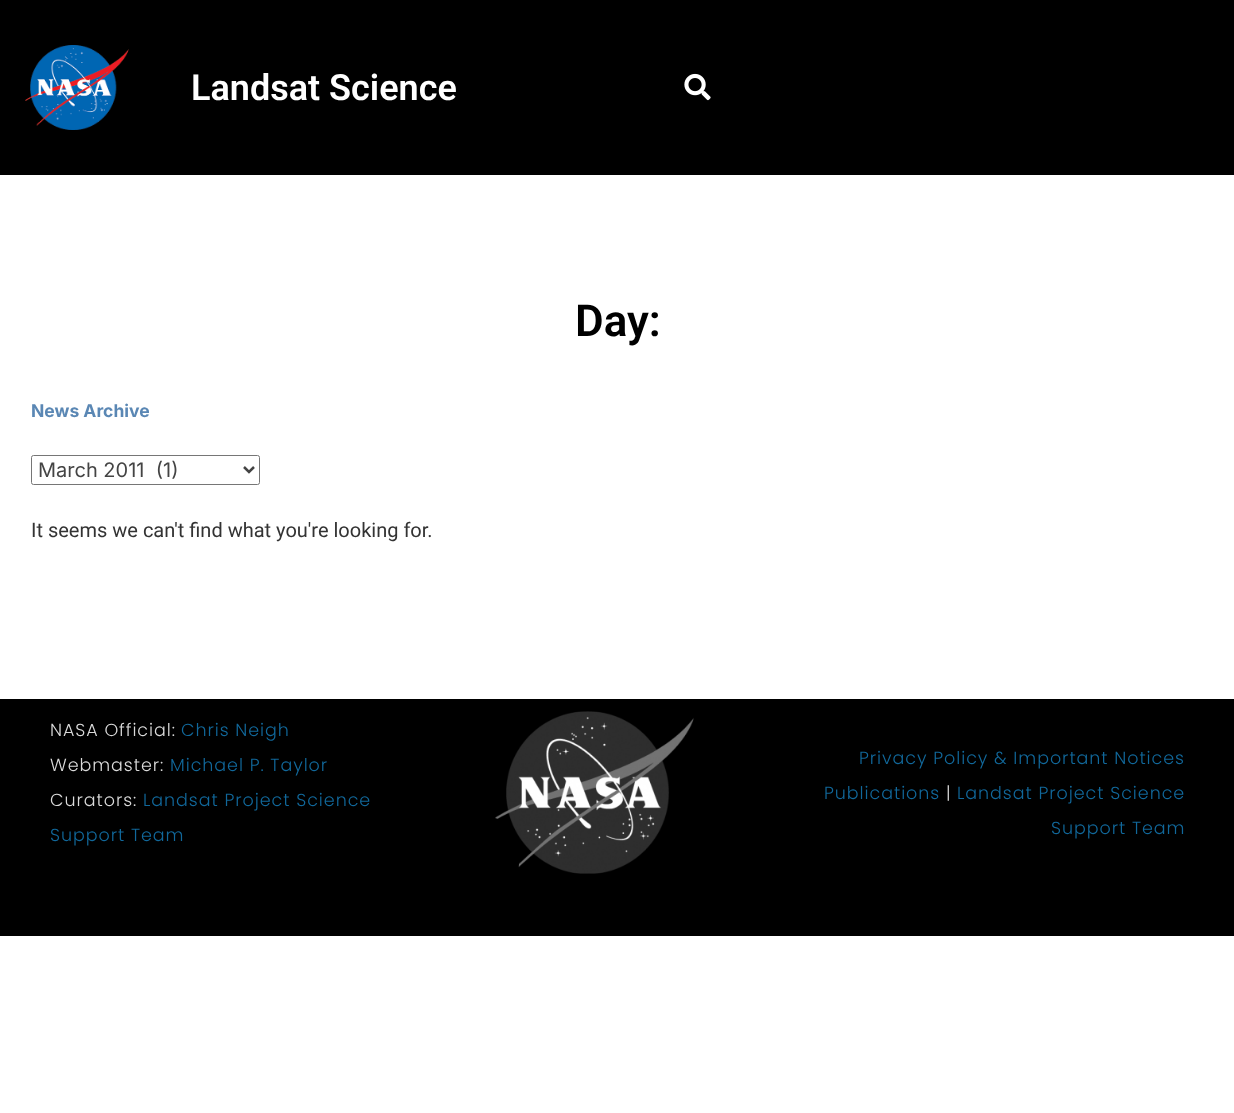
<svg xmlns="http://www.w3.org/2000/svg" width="1234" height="1113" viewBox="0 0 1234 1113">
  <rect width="100%" height="100%" fill="#ffffff"/>
  <rect x="0" y="0" width="1234" height="175" fill="#000000"/>
  <image x="25" y="45" width="104" height="85" href="img1.png"/>
  <text x="191" y="100" font-family="Roboto" font-size="36" font-weight="600" fill="#ffffff">Landsat Science</text>
  <image x="684" y="73" width="27" height="28" href="img2.png"/>
  <text x="575" y="336" font-family="Roboto" font-size="44" font-weight="600" fill="#000000">Day:</text>
  <text x="31" y="417" font-family="Inter" font-size="17.5" font-weight="bold" fill="#5a87b4">News Archive</text>
  <rect x="31.5" y="455.5" width="228" height="29" rx="2" fill="none" stroke="#767676"/>
  <path d="M244 467L249 472L254 467" fill="none" stroke="#444444" stroke-width="2.5"/>
  <text x="38" y="477" font-family="Inter" font-size="20" fill="#444444" xml:space="preserve">March 2011  (1)</text>
  <text x="31" y="537" font-family="Roboto" font-size="20" fill="#333333">It seems we can't find what you're looking for.</text>
  <rect x="0" y="699" width="1234" height="237" fill="#000000"/>
  <text x="50" y="736" font-family="Poppins" font-size="17.5" font-weight="300" letter-spacing="0.95" fill="#dadada">NASA Official:</text>
  <text x="181" y="736" font-family="Poppins" font-size="17.5" font-weight="300" letter-spacing="0.95" fill="#11689b">Chris Neigh</text>
  <text x="50" y="771" font-family="Poppins" font-size="17.5" font-weight="300" letter-spacing="0.95" fill="#dadada">Webmaster:</text>
  <text x="170" y="771" font-family="Poppins" font-size="17.5" font-weight="300" letter-spacing="0.95" fill="#11689b">Michael P. Taylor</text>
  <text x="50" y="806" font-family="Poppins" font-size="17.5" font-weight="300" letter-spacing="0.95" fill="#dadada">Curators:</text>
  <text x="143" y="806" font-family="Poppins" font-size="17.5" font-weight="300" letter-spacing="0.95" fill="#11689b">Landsat Project Science</text>
  <text x="50" y="841" font-family="Poppins" font-size="17.5" font-weight="300" letter-spacing="0.95" fill="#11689b">Support Team</text>
  <image x="495" y="711" width="199" height="163" href="img3.png"/>
  <text x="859" y="764" font-family="Poppins" font-size="17.5" font-weight="300" letter-spacing="0.95" fill="#11689b">Privacy Policy &amp; Important Notices</text>
  <text x="824" y="799" font-family="Poppins" font-size="17.5" font-weight="300" letter-spacing="0.95" fill="#11689b">Publications</text>
  <text x="946" y="799" font-family="Poppins" font-size="17.5" font-weight="300" letter-spacing="0.95" fill="#dadada">|</text>
  <text x="957" y="799" font-family="Poppins" font-size="17.5" font-weight="300" letter-spacing="0.95" fill="#11689b">Landsat Project Science</text>
  <text x="1051" y="834" font-family="Poppins" font-size="17.5" font-weight="300" letter-spacing="0.95" fill="#11689b">Support Team</text>
</svg>
